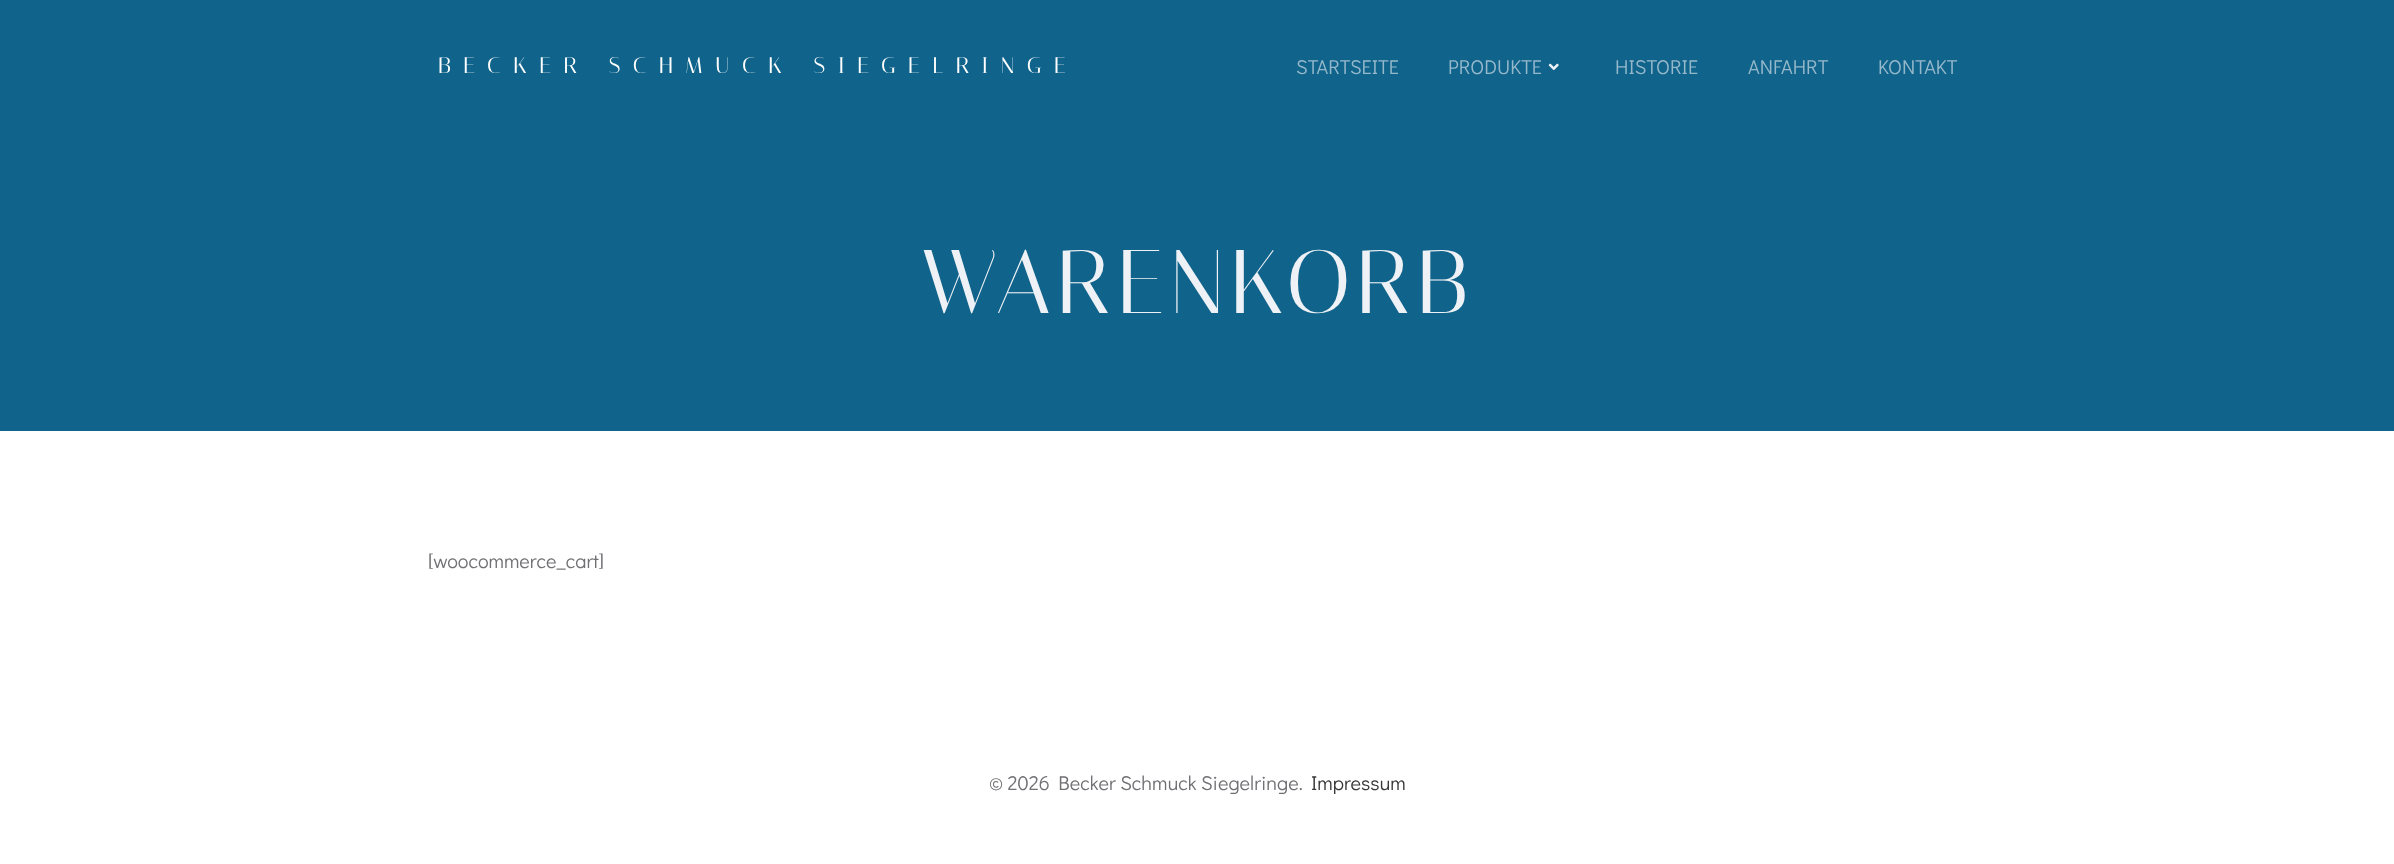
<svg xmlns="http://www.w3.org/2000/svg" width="2394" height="864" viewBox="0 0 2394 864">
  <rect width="100%" height="100%" fill="#ffffff"/>
  <rect x="0" y="0" width="2394" height="431" fill="#10638b"/>
  <text x="438" y="73" font-family="Italiana" font-size="22.5" letter-spacing="12.5" fill="#ffffff">BECKER SCHMUCK SIEGELRINGE</text>
  <text x="1296" y="74" font-family="Didact Gothic" font-size="20" fill="#95b8cb">STARTSEITE</text>
  <text x="1448" y="74" font-family="Didact Gothic" font-size="20" fill="#95b8cb">PRODUKTE</text>
  <image x="1548" y="63" width="11" height="8" href="img1.png"/>
  <text x="1615" y="74" font-family="Didact Gothic" font-size="20" fill="#95b8cb">HISTORIE</text>
  <text x="1748" y="74" font-family="Didact Gothic" font-size="20" fill="#95b8cb">ANFAHRT</text>
  <text x="1878" y="74" font-family="Didact Gothic" font-size="20" fill="#95b8cb">KONTAKT</text>
  <text x="921" y="313" font-family="Italiana" font-size="90" letter-spacing="6.25" fill="#eef1f5">WARENKORB</text>
  <text x="428" y="568" font-family="Didact Gothic" font-size="20" fill="#717175">[woocommerce_cart]</text>
  <text x="989" y="790" font-family="Didact Gothic" font-size="20" fill="#717175">© 2026 Becker Schmuck Siegelringe.</text>
  <text x="1311" y="790" font-family="Didact Gothic" font-size="20" fill="#373739">Impressum</text>
</svg>
